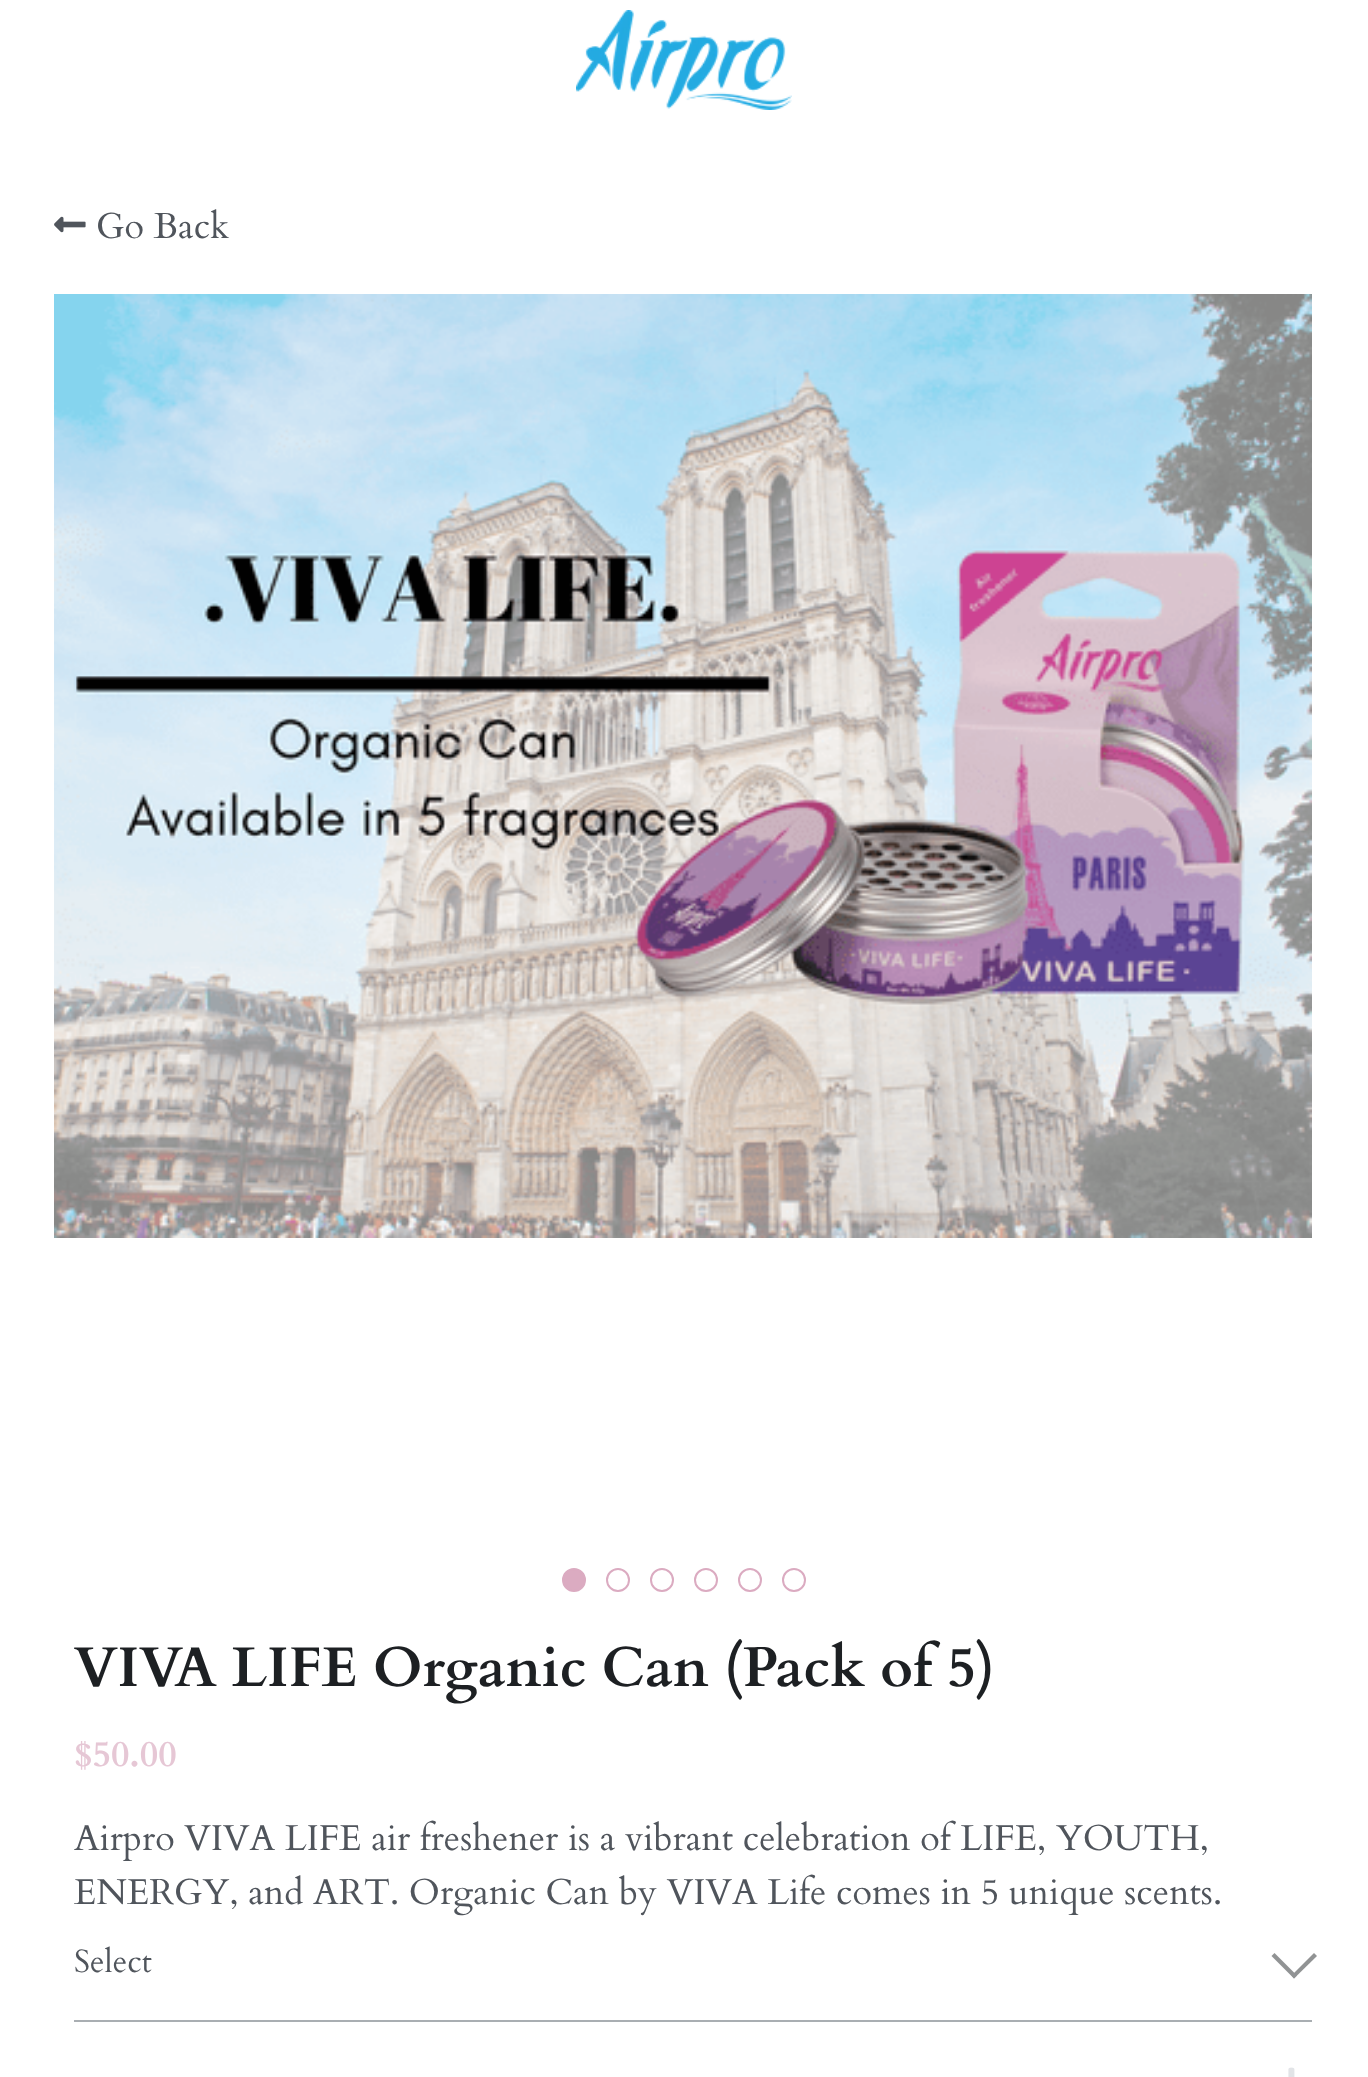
<svg xmlns="http://www.w3.org/2000/svg" width="1368" height="2077" viewBox="0 0 1368 2077">
  <rect width="100%" height="100%" fill="#ffffff"/>
  <image x="576" y="10" width="216" height="100" href="img1.png"/>
  <image x="54" y="216" width="32" height="17" href="img2.png"/>
  <text x="96" y="238" font-family="Cardo" font-size="36" fill="#50555c">Go Back</text>
  <image x="54" y="294" width="1258" height="944" href="img3.png"/>
  <circle cx="574" cy="1580" r="11" fill="#dbabc1" stroke="#dbabc1" stroke-width="2"/>
  <circle cx="618" cy="1580" r="11" fill="none" stroke="#dbabc1" stroke-width="2"/>
  <circle cx="662" cy="1580" r="11" fill="none" stroke="#dbabc1" stroke-width="2"/>
  <circle cx="706" cy="1580" r="11" fill="none" stroke="#dbabc1" stroke-width="2"/>
  <circle cx="750" cy="1580" r="11" fill="none" stroke="#dbabc1" stroke-width="2"/>
  <circle cx="794" cy="1580" r="11" fill="none" stroke="#dbabc1" stroke-width="2"/>
  <text x="74" y="1686" font-family="Cardo" font-size="56" font-weight="bold" fill="#1d2023">VIVA LIFE Organic Can (Pack of 5)</text>
  <text x="74" y="1766" font-family="Cardo" font-size="36" font-weight="bold" fill="#e6c7d5">$50.00</text>
  <text x="74" y="1850" font-family="Cardo" font-size="36" fill="#50555c">Airpro VIVA LIFE air freshener is a vibrant celebration of LIFE, YOUTH,</text>
  <text x="74" y="1904" font-family="Cardo" font-size="36" fill="#50555c">ENERGY, and ART. Organic Can by VIVA Life comes in 5 unique scents.</text>
  <rect x="74" y="2020" width="1238" height="2" fill="#a9aeb2"/>
  <text x="74" y="1972" font-family="Cardo" font-size="32" fill="#50555c">Select</text>
  <path d="M1314 1953L1317 1956L1294 1978.5L1291.5 1975.5Z" fill="#919394"/>
  <path d="M1274.5 1953L1297 1975.5L1294 1978.5L1271.5 1956Z" fill="#919394"/>
  <image x="1288" y="2067" width="7" height="10" href="img4.png"/>
</svg>
